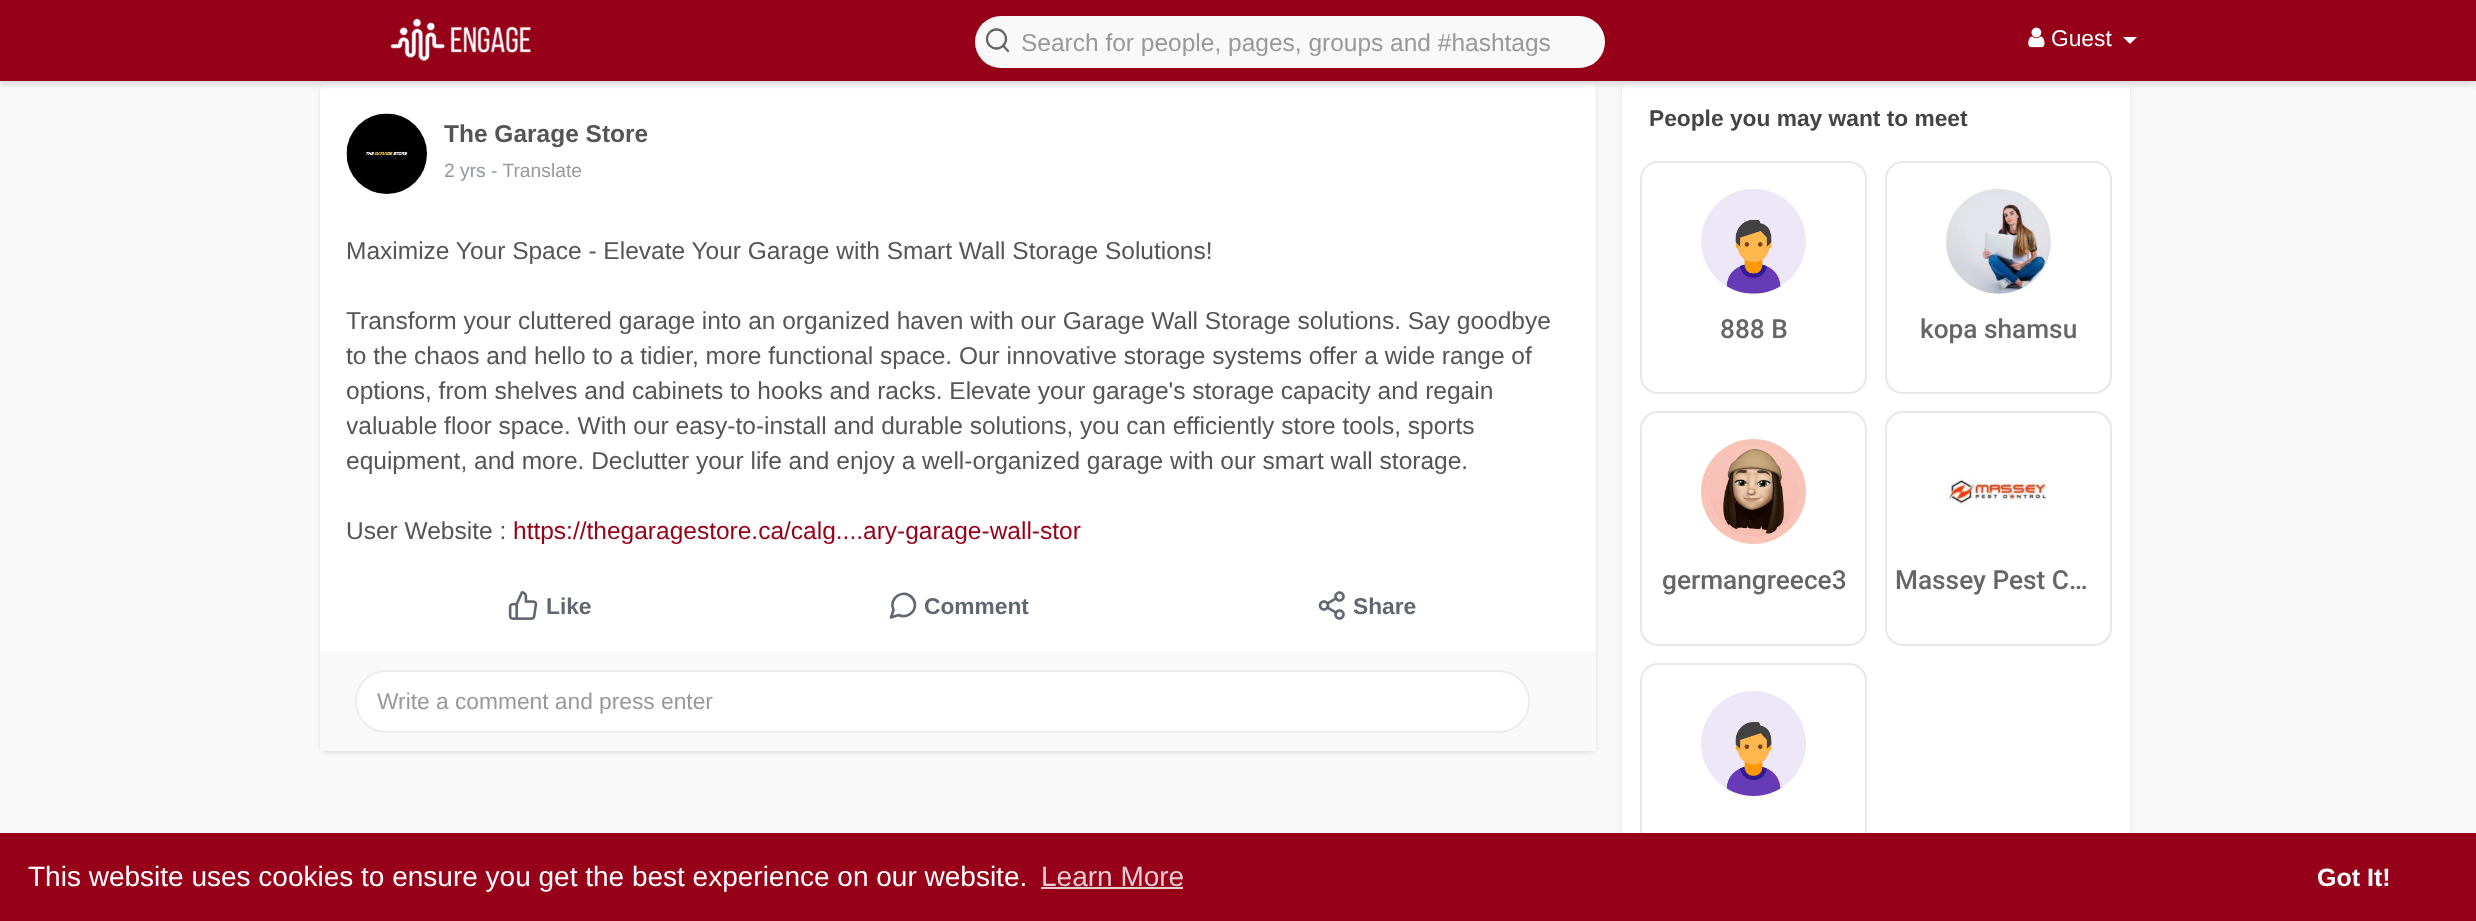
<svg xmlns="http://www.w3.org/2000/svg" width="2476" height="921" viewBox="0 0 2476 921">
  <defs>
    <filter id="blur1" x="-50%" y="-200%" width="200%" height="500%"><feGaussianBlur stdDeviation="2.5"/></filter>
    <filter id="blur2" x="-50%" y="-200%" width="200%" height="500%"><feGaussianBlur stdDeviation="3.5"/></filter>
    <clipPath id="clip1"><rect x="1020" y="28" width="562" height="28"/></clipPath>
    <clipPath id="clip2"><rect x="347" y="233" width="1223" height="315"/></clipPath>
  </defs>
  <rect width="100%" height="100%" fill="#f9f9f9"/>
  <rect x="320" y="86" width="1276" height="667" rx="7" fill="#000000" fill-opacity="0.1" filter="url(#blur1)"/>
  <rect x="320" y="84" width="1276" height="667" rx="7" fill="#ffffff"/>
  <rect x="1622" y="86" width="508" height="829" rx="7" fill="#000000" fill-opacity="0.1" filter="url(#blur1)"/>
  <rect x="1622" y="84" width="508" height="830" rx="7" fill="#ffffff"/>
  <path d="M1629 84H2123C2127 84 2130 87 2130 91V152H1622V91C1622 87 1625 84 1629 84Z" fill="#ffffff"/>
  <rect x="0" y="4" width="2476" height="80" fill="#000000" fill-opacity="0.15" filter="url(#blur2)"/>
  <rect x="0" y="0" width="2476" height="81" fill="#960018"/>
  <image x="390" y="18" width="141" height="43" href="img1.png"/>
  <rect x="975" y="16" width="630" height="52" rx="26" fill="#f9f9f9"/>
  <circle cx="996.5" cy="39" r="9.5" fill="none" stroke="#666666" stroke-width="2.3"/>
  <path d="M1008 51L1003 45.5" fill="none" stroke="#666666" stroke-width="2.3" stroke-linecap="round" stroke-linejoin="round"/>
  <g clip-path="url(#clip1)">
    <text x="1021" y="51" font-family="Liberation Sans" font-size="24.5" fill="#999999">Search for people, pages, groups and #hashtags</text>
  </g>
  <image x="2028" y="27" width="17" height="21" href="img2.png"/>
  <text x="2051" y="46" font-family="Liberation Sans" font-size="22.75" fill="#ffffff">Guest</text>
  <path d="M2123 37H2137L2130 44Z" fill="#ffffff"/>
  <image x="346" y="113" width="81" height="81" href="img3.png"/>
  <text x="444" y="142" font-family="Liberation Sans" font-size="24.5" font-weight="bold" fill="#555555">The Garage Store</text>
  <text x="444" y="177" font-family="Liberation Sans" font-size="19.25" fill="#9197a3">2 yrs</text>
  <text x="491" y="177" font-family="Liberation Sans" font-size="19.25" fill="#999999">- Translate</text>
  <text x="346" y="259" font-family="Liberation Sans" font-size="24.5" fill="#555555">Maximize Your Space - Elevate Your Garage with Smart Wall Storage Solutions!</text>
  <text x="346" y="329" font-family="Liberation Sans" font-size="24.5" fill="#555555">Transform your cluttered garage into an organized haven with our Garage Wall Storage solutions. Say goodbye</text>
  <text x="346" y="364" font-family="Liberation Sans" font-size="24.5" fill="#555555">to the chaos and hello to a tidier, more functional space. Our innovative storage systems offer a wide range of</text>
  <g clip-path="url(#clip2)">
    <text x="346" y="399" font-family="Liberation Sans" font-size="24.5" fill="#555555">options, from shelves and cabinets to hooks and racks. Elevate your garage's storage capacity and regain</text>
    <text x="346" y="434" font-family="Liberation Sans" font-size="24.5" fill="#555555">valuable floor space. With our easy-to-install and durable solutions, you can efficiently store tools, sports</text>
    <text x="346" y="469" font-family="Liberation Sans" font-size="24.5" fill="#555555">equipment, and more. Declutter your life and enjoy a well-organized garage with our smart wall storage.</text>
  </g>
  <text x="346" y="539" font-family="Liberation Sans" font-size="24.5" fill="#555555">User Website :</text>
  <text x="513" y="539" font-family="Liberation Sans" font-size="24.5" fill="#960018">https://thegaragestore.ca/calg....ary-garage-wall-stor</text>
  <image x="508" y="591" width="30" height="29" href="img4.png"/>
  <text x="546" y="614" font-family="Liberation Sans" font-size="22.75" font-weight="bold" fill="#616770">Like</text>
  <path d="M915 605C915 613 906 618.5 898.5 615L891 617.5L893.5 610C888 599 902.5 588 911.5 597C913.5 599 915 602 915 605Z" fill="none" stroke="#616770" stroke-width="2.6" stroke-linecap="round" stroke-linejoin="round"/>
  <text x="924" y="614" font-family="Liberation Sans" font-size="22.75" font-weight="bold" fill="#616770">Comment</text>
  <image x="1318" y="591" width="27" height="29" href="img5.png"/>
  <text x="1353" y="614" font-family="Liberation Sans" font-size="22.75" font-weight="bold" fill="#616770">Share</text>
  <rect x="320" y="651" width="1276" height="100" fill="#f9f9f9"/>
  <rect x="356" y="671" width="1173" height="61" rx="30.5" fill="#ffffff" stroke="#ededed" stroke-width="2"/>
  <text x="377" y="709" font-family="Liberation Sans" font-size="22.75" fill="#999999">Write a comment and press enter</text>
  <text x="1649" y="126" font-family="Liberation Sans" font-size="22.75" font-weight="bold" fill="#444444">People you may want to meet</text>
  <rect x="1641" y="162" width="225" height="231" rx="17" fill="none" stroke="#e8e8e8" stroke-width="2"/>
  <image x="1701" y="189" width="105" height="105" href="img6.png"/>
  <text x="1720" y="338" font-family="Roboto" font-size="26.25" font-weight="500" fill="#666666">888 B</text>
  <rect x="1886" y="162" width="225" height="231" rx="17" fill="none" stroke="#e8e8e8" stroke-width="2"/>
  <image x="1946" y="189" width="105" height="105" href="img7.png"/>
  <text x="1920" y="338" font-family="Roboto" font-size="26.25" font-weight="500" fill="#666666">kopa shamsu</text>
  <rect x="1641" y="412" width="225" height="233" rx="17" fill="none" stroke="#e8e8e8" stroke-width="2"/>
  <image x="1701" y="439" width="105" height="105" href="img8.png"/>
  <text x="1662" y="589" font-family="Roboto" font-size="26.25" font-weight="500" fill="#666666">germangreece3</text>
  <rect x="1886" y="412" width="225" height="233" rx="17" fill="none" stroke="#e8e8e8" stroke-width="2"/>
  <image x="1946" y="478" width="102" height="29" href="img9.png"/>
  <text x="1895" y="589" font-family="Roboto" font-size="26.25" font-weight="500" fill="#666666">Massey Pest C…</text>
  <rect x="1641" y="664" width="225" height="231" rx="17" fill="none" stroke="#e8e8e8" stroke-width="2"/>
  <image x="1701" y="691" width="105" height="105" href="img10.png"/>
  <rect x="0" y="833" width="2476" height="88" fill="#960018"/>
  <text x="28" y="886" font-family="Liberation Sans" font-size="28" fill="#ffffff">This website uses cookies to ensure you get the best experience on our website.</text>
  <text x="1041" y="886" font-family="Liberation Sans" font-size="28" fill="#eaccd1">Learn More</text>
  <rect x="1041" y="887" width="142" height="2" fill="#eaccd1"/>
  <text x="2317" y="886" font-family="Liberation Sans" font-size="25" font-weight="bold" fill="#ffffff">Got It!</text>
</svg>
